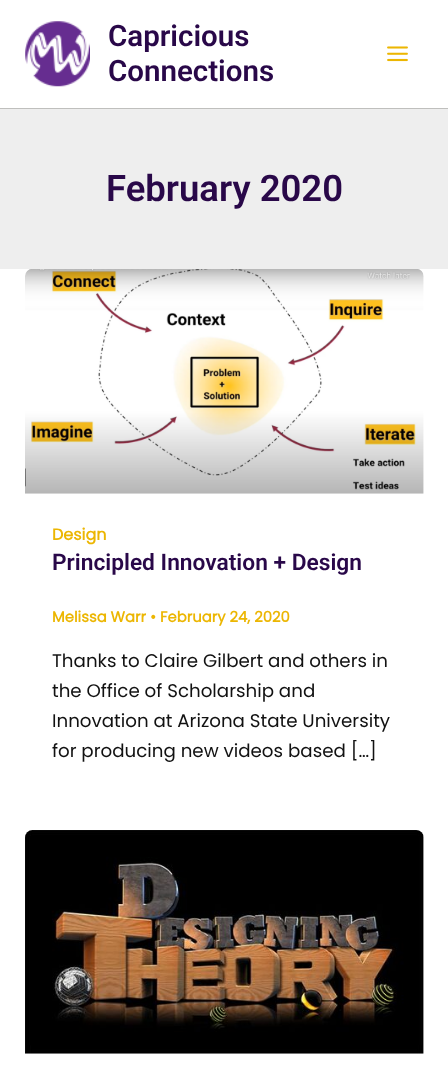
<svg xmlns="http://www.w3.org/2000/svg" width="448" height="1091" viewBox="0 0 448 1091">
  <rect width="100%" height="100%" fill="#ffffff"/>
  <rect x="0" y="108" width="448" height="1" fill="#bfbfbd"/>
  <image x="25" y="21" width="65" height="66" href="img1.png"/>
  <text x="108" y="46" font-family="Roboto" font-size="29.5" font-weight="600" fill="#290849">Capricious</text>
  <text x="108" y="81" font-family="Roboto" font-size="29.5" font-weight="600" fill="#290849">Connections</text>
  <image x="387" y="46" width="21" height="16" href="img2.png"/>
  <rect x="0" y="109" width="448" height="160" fill="#eeeeee"/>
  <text x="106" y="201" font-family="Roboto" font-size="36.5" font-weight="600" fill="#290849">February 2020</text>
  <image x="25" y="269" width="399" height="225" href="img3.png"/>
  <text x="52" y="540" font-family="Poppins" font-size="16" font-weight="bold" fill="#ecb602">Design</text>
  <text x="52" y="570" font-family="Roboto" font-size="22.75" font-weight="600" fill="#290849">Principled Innovation + Design</text>
  <text x="52" y="622" font-family="Poppins" font-size="14.8" font-weight="bold" fill="#ecb602">Melissa Warr • February 24, 2020</text>
  <text x="52" y="667" font-family="Poppins" font-size="18.25" fill="#121212">Thanks to Claire Gilbert and others in</text>
  <text x="52" y="697" font-family="Poppins" font-size="18.25" fill="#121212">the Office of Scholarship and</text>
  <text x="52" y="727" font-family="Poppins" font-size="18.25" fill="#121212">Innovation at Arizona State University</text>
  <text x="52" y="757" font-family="Poppins" font-size="18.25" fill="#121212">for producing new videos based […]</text>
  <image x="25" y="830" width="399" height="224" href="img4.png"/>
</svg>
